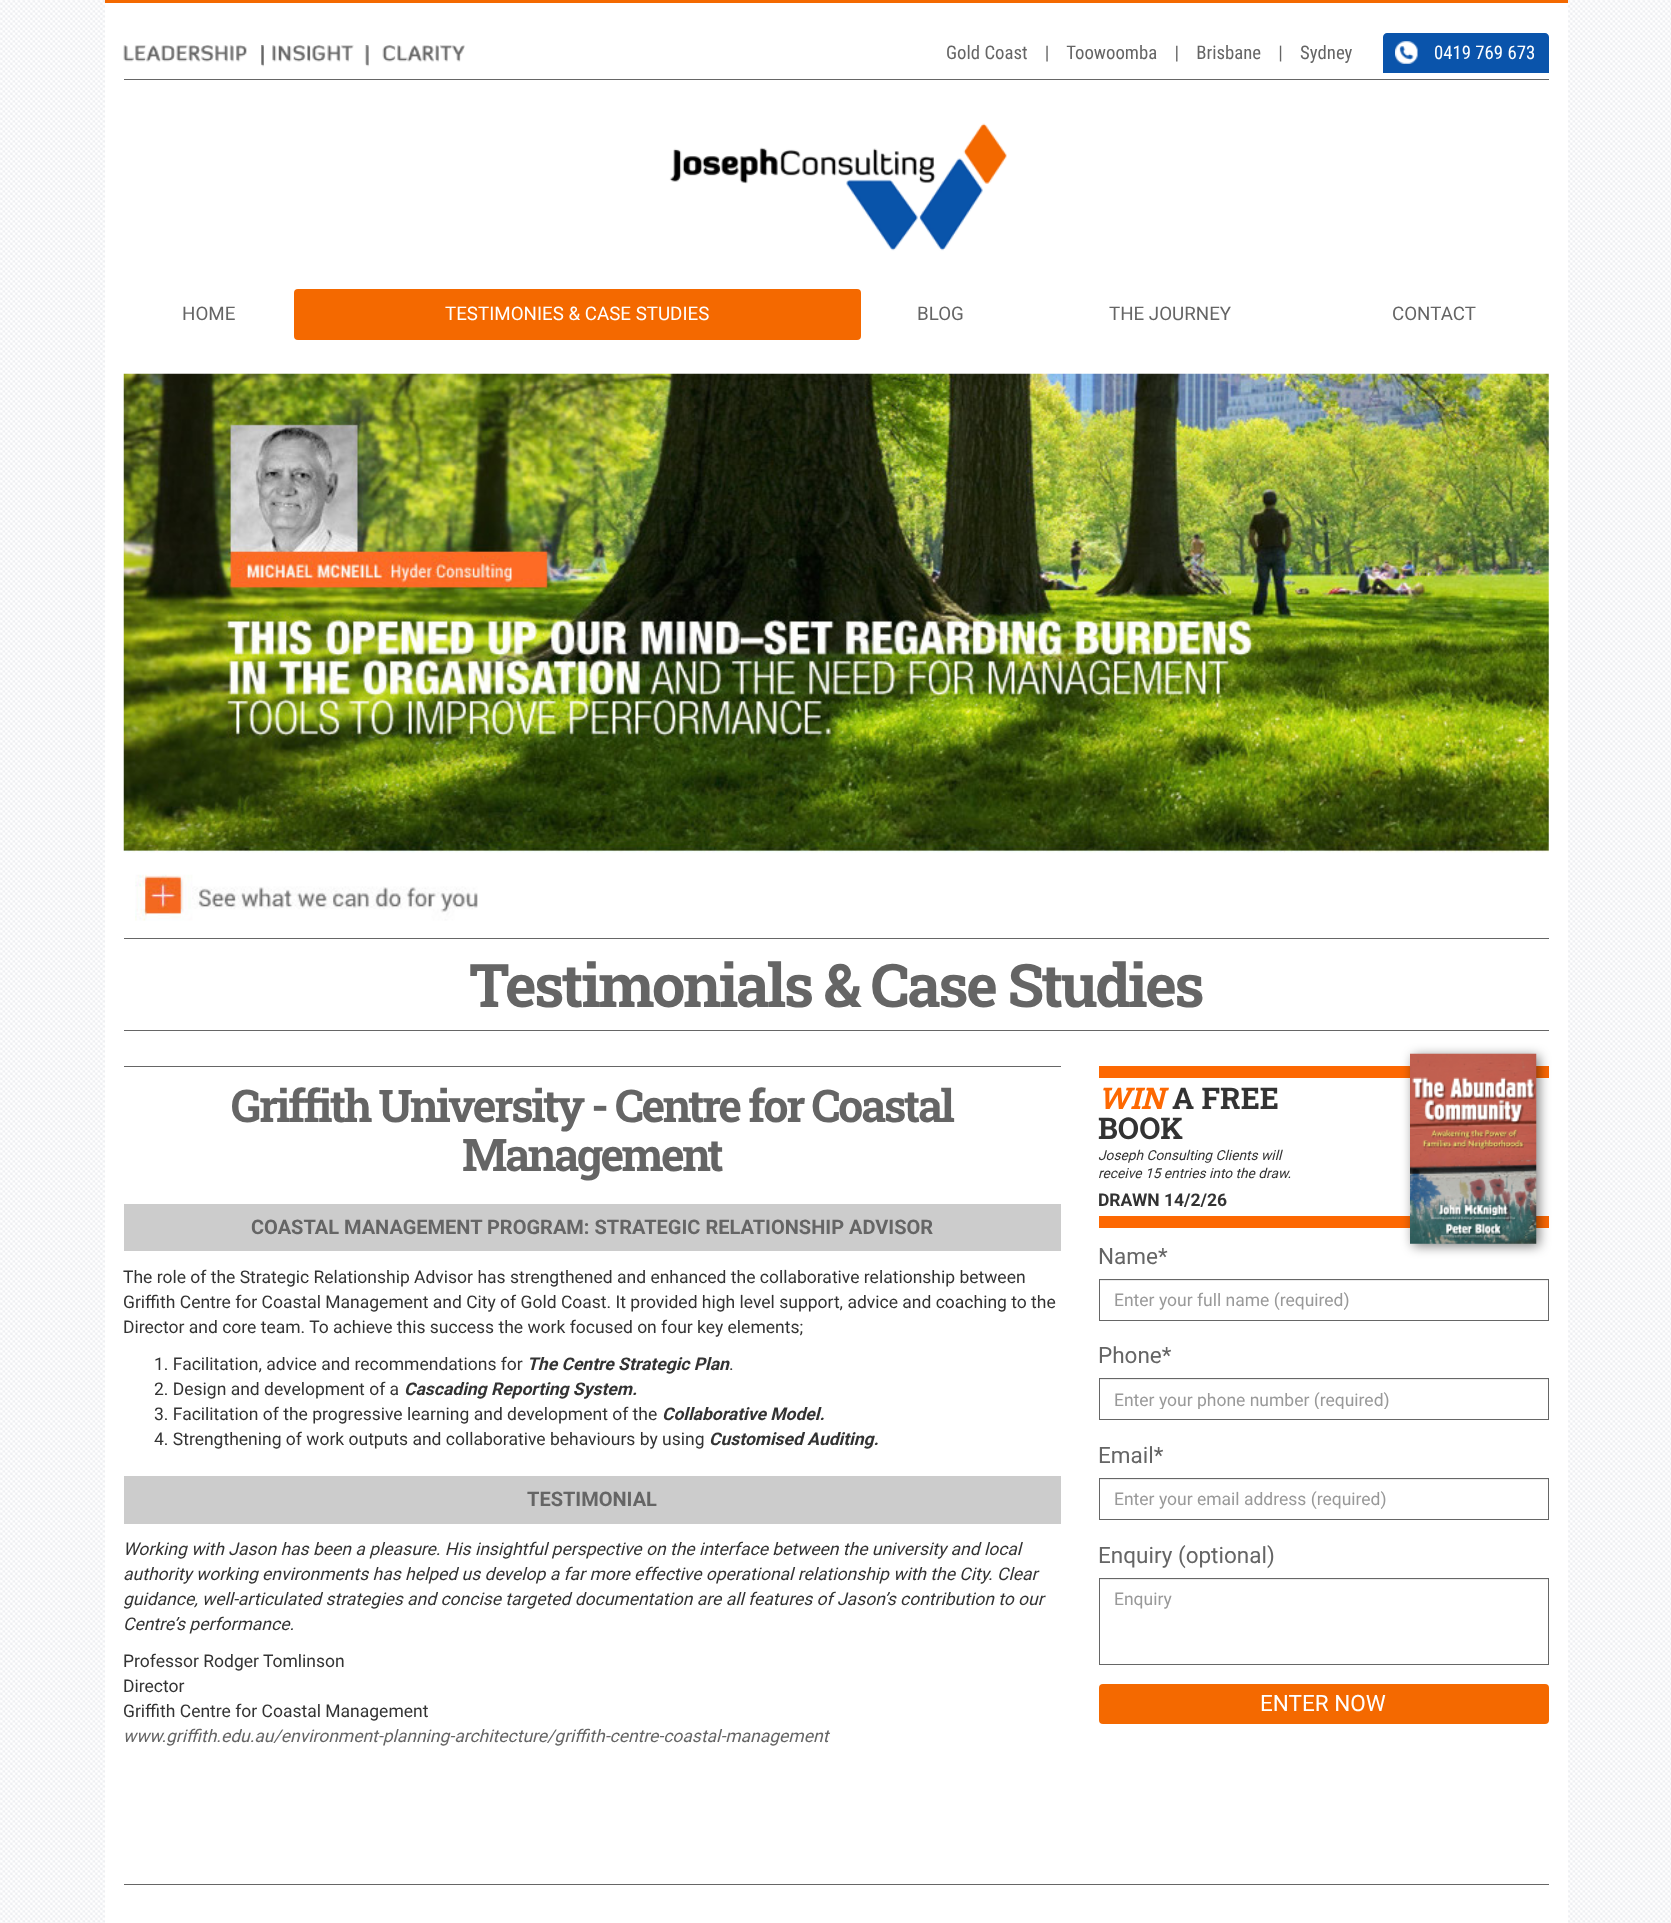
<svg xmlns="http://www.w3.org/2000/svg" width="1671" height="1923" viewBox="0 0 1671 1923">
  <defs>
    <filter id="blur1" x="-50%" y="-200%" width="200%" height="500%"><feGaussianBlur stdDeviation="6"/></filter>
    <clipPath id="clip1"><rect x="1115" y="1389" width="418" height="20"/></clipPath>
  </defs>
  <rect width="100%" height="100%" fill="#ffffff"/>
  <image x="0" y="0" width="1671" height="1923" href="img1.png"/>
  <rect x="105" y="3" width="1463" height="1920" fill="#ffffff"/>
  <rect x="105" y="0" width="1463" height="3" fill="#f46900"/>
  <rect x="124" y="79" width="1425" height="1" fill="#666666"/>
  <image x="123" y="45" width="342" height="22" href="img2.png"/>
  <text x="946" y="59" font-family="Roboto Condensed" font-size="18.75" fill="#656565" xml:space="preserve">Gold Coast    |    Toowoomba    |    Brisbane    |    Sydney</text>
  <path d="M1387 33H1545C1547 33 1549 35 1549 37V73H1383V37C1383 35 1385 33 1387 33Z" fill="#0a54ab"/>
  <image x="1395" y="41" width="23" height="23" href="img3.png"/>
  <text x="1434" y="59" font-family="Roboto Condensed" font-size="18.75" fill="#ffffff">0419 769 673</text>
  <image x="669" y="123" width="338" height="128" href="img4.png"/>
  <text x="182" y="320" font-family="Roboto" font-size="18.75" fill="#656565">HOME</text>
  <rect x="294" y="289" width="567" height="51" rx="4" fill="#f46900"/>
  <text x="445" y="320" font-family="Roboto" font-size="18.75" fill="#ffffff">TESTIMONIES &amp; CASE STUDIES</text>
  <text x="917" y="320" font-family="Roboto" font-size="18.75" fill="#656565">BLOG</text>
  <text x="1109" y="320" font-family="Roboto" font-size="18.75" fill="#656565">THE JOURNEY</text>
  <text x="1392" y="320" font-family="Roboto" font-size="18.75" fill="#656565">CONTACT</text>
  <image x="123" y="373" width="1426" height="548" href="img5.png"/>
  <rect x="124" y="938" width="1425" height="1" fill="#666666"/>
  <rect x="124" y="1030" width="1425" height="1" fill="#666666"/>
  <text x="469" y="1007" font-family="Roboto Slab" font-size="60" font-weight="bold" letter-spacing="-2.5" fill="#656565">Testimonials &amp; Case Studies</text>
  <rect x="124" y="1066" width="937" height="1" fill="#666666"/>
  <text x="231" y="1122" font-family="Roboto Slab" font-size="45" font-weight="bold" letter-spacing="-2.5" fill="#656565">Griffith University - Centre for Coastal</text>
  <text x="462" y="1171" font-family="Roboto Slab" font-size="45" font-weight="bold" letter-spacing="-2.5" fill="#656565">Management</text>
  <rect x="124" y="1204" width="937" height="47" fill="#cccccc"/>
  <text x="251" y="1234" font-family="Roboto" font-size="20" font-weight="bold" fill="#656565">COASTAL MANAGEMENT PROGRAM: STRATEGIC RELATIONSHIP ADVISOR</text>
  <text x="123" y="1283" font-family="Roboto" font-size="17.5" fill="#333333">The role of the Strategic Relationship Advisor has strengthened and enhanced the collaborative relationship between</text>
  <text x="123" y="1308" font-family="Roboto" font-size="17.5" fill="#333333">Griffith Centre for Coastal Management and City of Gold Coast. It provided high level support, advice and coaching to the</text>
  <text x="123" y="1333" font-family="Roboto" font-size="17.5" fill="#333333">Director and core team. To achieve this success the work focused on four key elements;</text>
  <text x="154" y="1370" font-family="Roboto" font-size="17.5" fill="#333333">1. Facilitation, advice and recommendations for</text>
  <text x="527" y="1370" font-family="Roboto" font-size="17.5" font-weight="bold" font-style="italic" fill="#333333">The Centre Strategic Plan</text>
  <text x="729" y="1370" font-family="Roboto" font-size="17.5" fill="#333333">.</text>
  <text x="154" y="1395" font-family="Roboto" font-size="17.5" fill="#333333">2. Design and development of a</text>
  <text x="404" y="1395" font-family="Roboto" font-size="17.5" font-weight="bold" font-style="italic" fill="#333333">Cascading Reporting System.</text>
  <text x="154" y="1420" font-family="Roboto" font-size="17.5" fill="#333333">3. Facilitation of the progressive learning and development of the</text>
  <text x="662" y="1420" font-family="Roboto" font-size="17.5" font-weight="bold" font-style="italic" fill="#333333">Collaborative Model.</text>
  <text x="154" y="1445" font-family="Roboto" font-size="17.5" fill="#333333">4. Strengthening of work outputs and collaborative behaviours by using</text>
  <text x="709" y="1445" font-family="Roboto" font-size="17.5" font-weight="bold" font-style="italic" fill="#333333">Customised Auditing.</text>
  <rect x="124" y="1476" width="937" height="48" fill="#cccccc"/>
  <text x="527" y="1506" font-family="Roboto" font-size="20" font-weight="bold" fill="#656565">TESTIMONIAL</text>
  <text x="123" y="1555" font-family="Roboto" font-size="17.5" font-style="italic" fill="#333333">Working with Jason has been a pleasure. His insightful perspective on the interface between the university and local</text>
  <text x="123" y="1580" font-family="Roboto" font-size="17.5" font-style="italic" fill="#333333">authority working environments has helped us develop a far more effective operational relationship with the City. Clear</text>
  <text x="123" y="1605" font-family="Roboto" font-size="17.5" font-style="italic" fill="#333333">guidance, well-articulated strategies and concise targeted documentation are all features of Jason’s contribution to our</text>
  <text x="123" y="1630" font-family="Roboto" font-size="17.5" font-style="italic" fill="#333333">Centre’s performance.</text>
  <text x="123" y="1667" font-family="Roboto" font-size="17.5" fill="#333333">Professor Rodger Tomlinson</text>
  <text x="123" y="1692" font-family="Roboto" font-size="17.5" fill="#333333">Director</text>
  <text x="123" y="1717" font-family="Roboto" font-size="17.5" fill="#333333">Griffith Centre for Coastal Management</text>
  <text x="123" y="1742" font-family="Roboto" font-size="17.5" font-style="italic" fill="#656565">www.griffith.edu.au/environment-planning-architecture/griffith-centre-coastal-management</text>
  <rect x="1099" y="1066" width="450" height="12" fill="#fd6802"/>
  <rect x="1099" y="1216" width="450" height="12" fill="#fd6802"/>
  <text x="1098" y="1109" font-family="Roboto Slab" font-size="30" font-weight="bold" font-style="italic" fill="#fd6802">WIN</text>
  <text x="1172" y="1109" font-family="Roboto Slab" font-size="30" font-weight="bold" fill="#333333">A FREE</text>
  <text x="1098" y="1139" font-family="Roboto Slab" font-size="30" font-weight="bold" fill="#333333">BOOK</text>
  <text x="1098" y="1160" font-family="Roboto" font-size="13.75" font-style="italic" fill="#333333">Joseph Consulting Clients will</text>
  <text x="1098" y="1178" font-family="Roboto" font-size="13.75" font-style="italic" fill="#333333">receive 15 entries into the draw.</text>
  <text x="1098" y="1206" font-family="Roboto" font-size="17.5" font-weight="bold" fill="#333333">DRAWN 14/2/26</text>
  <rect x="1413" y="1056" width="126" height="190" fill="#000000" fill-opacity="0.5" filter="url(#blur1)"/>
  <image x="1410" y="1053" width="127" height="191" href="img6.png"/>
  <text x="1098" y="1264" font-family="Roboto" font-size="22.5" fill="#656565">Name*</text>
  <rect x="1100" y="1280" width="448" height="1" fill="#ececec"/>
  <rect x="1099.5" y="1279.5" width="449" height="41" fill="none" stroke="#666666"/>
  <text x="1114" y="1306" font-family="Roboto" font-size="17.5" fill="#999999">Enter your full name (required)</text>
  <text x="1098" y="1363" font-family="Roboto" font-size="22.5" fill="#656565">Phone*</text>
  <rect x="1100" y="1379" width="448" height="1" fill="#ececec"/>
  <rect x="1099.5" y="1378.5" width="449" height="41" fill="none" stroke="#666666"/>
  <g clip-path="url(#clip1)">
    <text x="1114" y="1406" font-family="Roboto" font-size="17.5" fill="#999999">Enter your phone number (required)</text>
  </g>
  <text x="1098" y="1463" font-family="Roboto" font-size="22.5" fill="#656565">Email*</text>
  <rect x="1100" y="1479" width="448" height="1" fill="#ececec"/>
  <rect x="1099.5" y="1478.5" width="449" height="41" fill="none" stroke="#666666"/>
  <text x="1114" y="1505" font-family="Roboto" font-size="17.5" fill="#999999">Enter your email address (required)</text>
  <text x="1098" y="1563" font-family="Roboto" font-size="22.5" fill="#656565">Enquiry (optional)</text>
  <rect x="1100" y="1579" width="448" height="1" fill="#ececec"/>
  <rect x="1099.5" y="1578.5" width="449" height="86" fill="none" stroke="#666666"/>
  <text x="1114" y="1605" font-family="Roboto" font-size="17.5" fill="#999999">Enquiry</text>
  <rect x="1099" y="1684" width="450" height="40" rx="4" fill="#f46900"/>
  <text x="1260" y="1711" font-family="Roboto" font-size="22.5" fill="#ffffff">ENTER NOW</text>
  <rect x="124" y="1884" width="1425" height="1" fill="#666666"/>
</svg>
